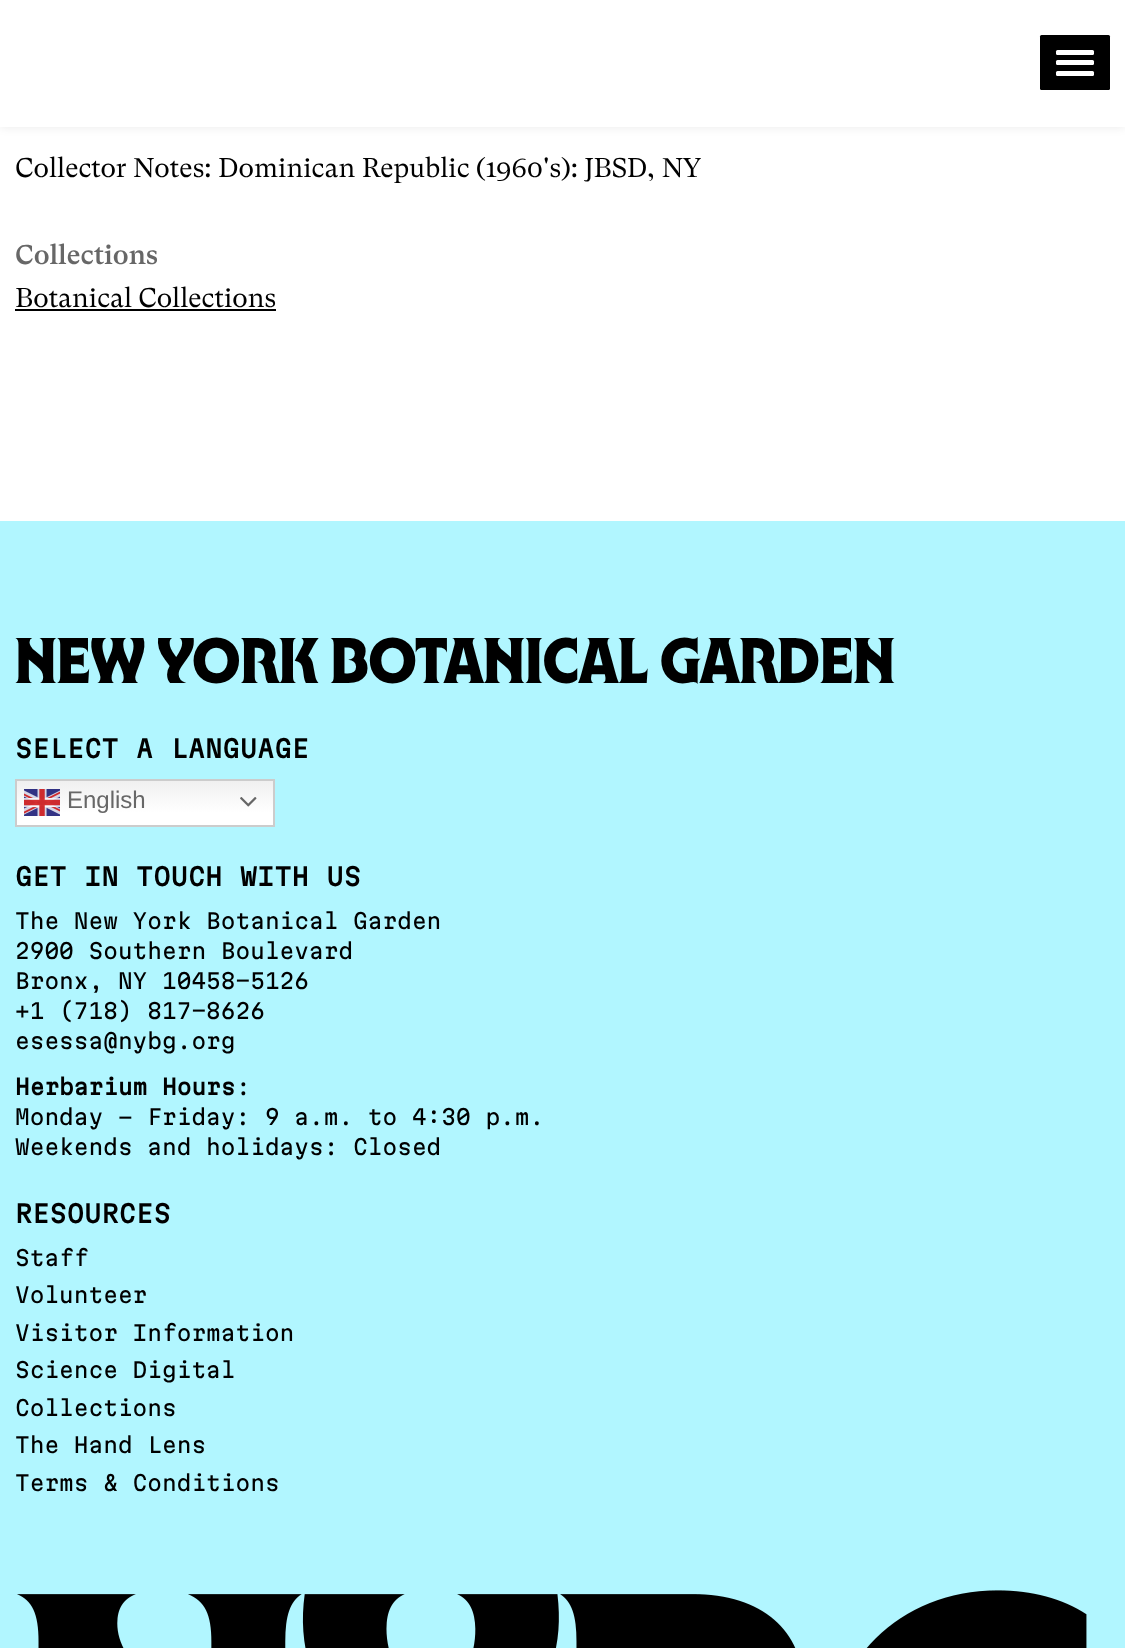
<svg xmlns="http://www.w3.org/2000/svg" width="1125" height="1648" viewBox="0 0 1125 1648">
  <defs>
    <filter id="blur1" x="-50%" y="-200%" width="200%" height="500%"><feGaussianBlur stdDeviation="4"/></filter>
    <linearGradient id="g1" gradientUnits="userSpaceOnUse" x1="145" y1="779" x2="145" y2="827"><stop offset="0" stop-color="#efefef"/><stop offset="0.7" stop-color="#ffffff"/></linearGradient>
  </defs>
  <rect width="100%" height="100%" fill="#ffffff"/>
  <rect x="0" y="2" width="1125" height="126" fill="#000000" fill-opacity="0.07" filter="url(#blur1)"/>
  <rect x="0" y="0" width="1125" height="127" fill="#ffffff"/>
  <rect x="1040" y="35" width="70" height="55" rx="1.5" fill="#000000"/>
  <rect x="1056" y="50" width="38" height="5" rx="1.5" fill="#ffffff"/>
  <rect x="1056" y="60" width="38" height="5" rx="1.5" fill="#ffffff"/>
  <rect x="1056" y="71" width="38" height="5" rx="1.5" fill="#ffffff"/>
  <text x="15" y="177" font-family="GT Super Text" font-size="27" fill="#000000">Collector Notes: Dominican Republic (1960's): JBSD, NY</text>
  <text x="15" y="264" font-family="GT Super Text" font-size="27" font-weight="500" fill="#676767">Collections</text>
  <text x="15" y="307" font-family="GT Super Text" font-size="27" fill="#000000">Botanical Collections</text>
  <rect x="15" y="309" width="261" height="2" fill="#000000"/>
  <rect x="0" y="521" width="1125" height="1127" fill="#b1f6ff"/>
  <text x="15" y="683" font-family="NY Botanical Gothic" font-size="52.5" font-weight="800" fill="#000000">New York Botanical Garden</text>
  <text x="15" y="758" font-family="Martian Mono" font-size="24" font-weight="bold" letter-spacing="0.5" fill="#000000">SELECT A LANGUAGE</text>
  <rect x="17" y="781" width="256" height="44" fill="url(#g1)"/>
  <rect x="16" y="780" width="258" height="46" fill="none" stroke="#cccccc" stroke-width="2"/>
  <image x="24" y="789" width="36" height="27" href="img1.png"/>
  <text x="67" y="808" font-family="Liberation Sans" font-size="24" fill="#676767">English</text>
  <image x="240" y="797" width="17" height="10" href="img2.png"/>
  <text x="15" y="886" font-family="Martian Mono" font-size="24" font-weight="bold" letter-spacing="0.5" fill="#000000">GET IN TOUCH WITH US</text>
  <text x="15" y="929" font-family="Martian Mono" font-size="21" fill="#000000">The New York Botanical Garden</text>
  <text x="15" y="959" font-family="Martian Mono" font-size="21" fill="#000000">2900 Southern Boulevard</text>
  <text x="15" y="989" font-family="Martian Mono" font-size="21" fill="#000000">Bronx, NY 10458-5126</text>
  <text x="15" y="1019" font-family="Martian Mono" font-size="21" fill="#000000">+1 (718) 817-8626</text>
  <text x="15" y="1049" font-family="Martian Mono" font-size="21" fill="#000000">esessa@nybg.org</text>
  <text x="15" y="1095" font-family="Martian Mono" font-size="21" font-weight="bold" fill="#000000">Herbarium Hours</text>
  <text x="236" y="1095" font-family="Martian Mono" font-size="21" fill="#000000">:</text>
  <text x="15" y="1125" font-family="Martian Mono" font-size="21" fill="#000000">Monday - Friday: 9 a.m. to 4:30 p.m.</text>
  <text x="15" y="1155" font-family="Martian Mono" font-size="21" fill="#000000">Weekends and holidays: Closed</text>
  <text x="15" y="1223" font-family="Martian Mono" font-size="24" font-weight="bold" letter-spacing="0.5" fill="#000000">RESOURCES</text>
  <text x="15" y="1266" font-family="Martian Mono" font-size="21" fill="#000000">Staff</text>
  <text x="15" y="1303" font-family="Martian Mono" font-size="21" fill="#000000">Volunteer</text>
  <text x="15" y="1341" font-family="Martian Mono" font-size="21" fill="#000000">Visitor Information</text>
  <text x="15" y="1378" font-family="Martian Mono" font-size="21" fill="#000000">Science Digital</text>
  <text x="15" y="1416" font-family="Martian Mono" font-size="21" fill="#000000">Collections</text>
  <text x="15" y="1453" font-family="Martian Mono" font-size="21" fill="#000000">The Hand Lens</text>
  <text x="15" y="1491" font-family="Martian Mono" font-size="21" fill="#000000">Terms &amp; Conditions</text>
  <image x="17" y="1590" width="1070" height="58" href="img3.png"/>
</svg>
